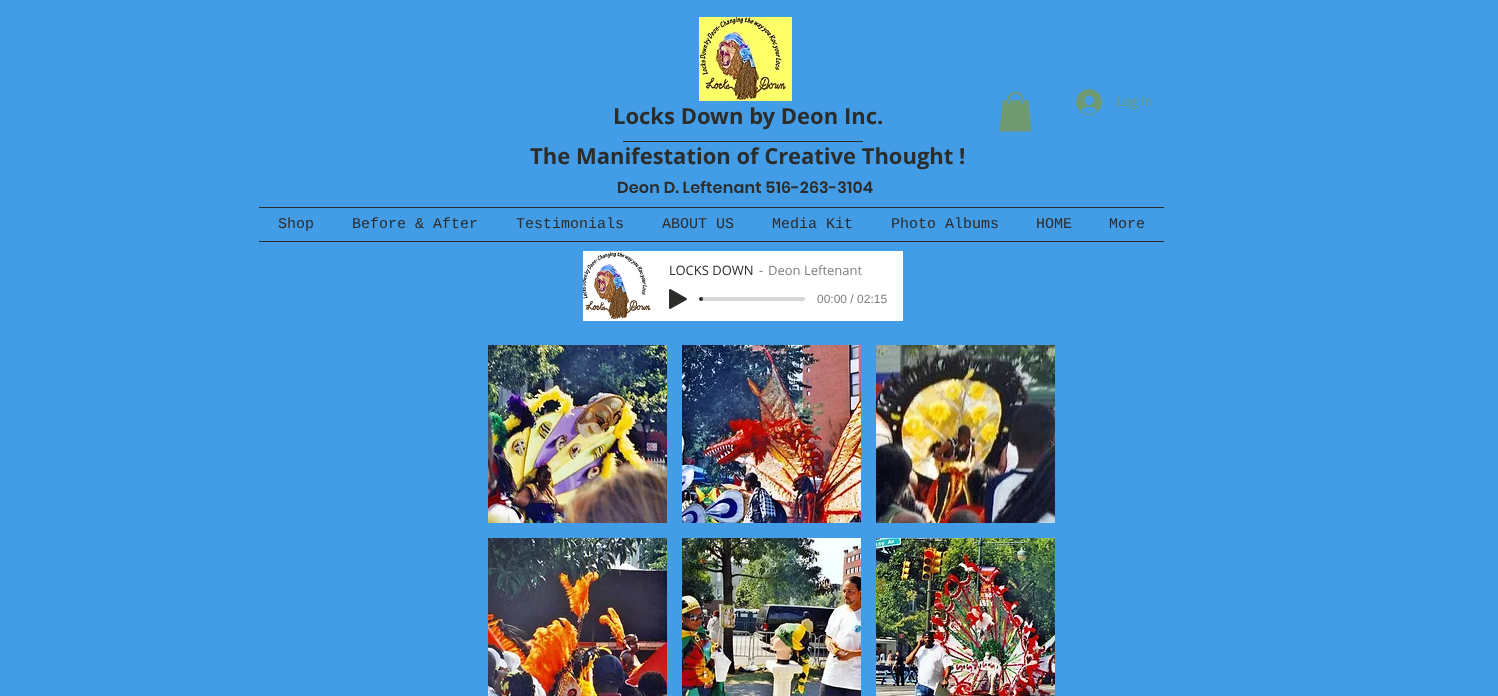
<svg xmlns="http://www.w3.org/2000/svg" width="1498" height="696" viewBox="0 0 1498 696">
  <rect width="100%" height="100%" fill="#439ce6"/>
  <image x="699" y="17" width="93" height="84" href="img1.png"/>
  <image x="999" y="92" width="33" height="40" href="img2.png"/>
  <image x="1076" y="89" width="26" height="26" href="img3.png"/>
  <text x="1116" y="106" font-family="Open Sans" font-size="13" fill="#6f9971">Log In</text>
  <text x="613" y="124" font-family="Open Sans" font-size="22" font-weight="bold" fill="#2c2c2b">Locks Down by Deon Inc.</text>
  <rect x="623" y="141" width="240" height="1" fill="#2c2c2b"/>
  <text x="530" y="164" font-family="Open Sans" font-size="22" font-weight="bold" fill="#2c2c2b">The Manifestation of Creative Thought !</text>
  <text x="617" y="193" font-family="Poppins" font-size="16" font-weight="600" letter-spacing="0.15" fill="#2c2c2b">Deon D. Leftenant 516-263-3104</text>
  <rect x="259" y="207" width="905" height="1" fill="#2c2c2b"/>
  <rect x="259" y="241" width="905" height="1" fill="#2c2c2b"/>
  <text x="278" y="228" font-family="Liberation Mono" font-size="15" fill="#2c2c2b">Shop</text>
  <text x="352" y="228" font-family="Liberation Mono" font-size="15" fill="#2c2c2b">Before &amp; After</text>
  <text x="516" y="228" font-family="Liberation Mono" font-size="15" fill="#2c2c2b">Testimonials</text>
  <text x="662" y="228" font-family="Liberation Mono" font-size="15" fill="#2c2c2b">ABOUT US</text>
  <text x="772" y="228" font-family="Liberation Mono" font-size="15" fill="#2c2c2b">Media Kit</text>
  <text x="891" y="228" font-family="Liberation Mono" font-size="15" fill="#2c2c2b">Photo Albums</text>
  <text x="1036" y="228" font-family="Liberation Mono" font-size="15" fill="#2c2c2b">HOME</text>
  <text x="1109" y="228" font-family="Liberation Mono" font-size="15" fill="#2c2c2b">More</text>
  <rect x="583" y="251" width="320" height="70" fill="#ffffff"/>
  <image x="583" y="252" width="68" height="67" href="img4.png"/>
  <text x="669" y="275" font-family="Open Sans" font-size="13" fill="#2c2c2b">LOCKS DOWN</text>
  <text x="759" y="275" font-family="Open Sans" font-size="13" fill="#808080">-</text>
  <text x="768" y="275" font-family="Open Sans" font-size="13" fill="#808080">Deon Leftenant</text>
  <image x="669" y="289" width="18" height="20" href="img5.png"/>
  <rect x="701" y="297" width="104" height="4" rx="2" fill="#d5d5d5"/>
  <circle cx="701" cy="299" r="2" fill="#2c2c2b"/>
  <text x="817" y="303" font-family="Liberation Sans" font-size="12" fill="#808080">00:00 / 02:15</text>
  <image x="488" y="345" width="179" height="178" href="img6.png"/>
  <image x="682" y="345" width="179" height="178" href="img7.png"/>
  <image x="876" y="345" width="179" height="178" href="img8.png"/>
  <image x="488" y="538" width="179" height="158" href="img9.png"/>
  <image x="682" y="538" width="179" height="158" href="img10.png"/>
  <image x="876" y="538" width="179" height="158" href="img11.png"/>
</svg>
